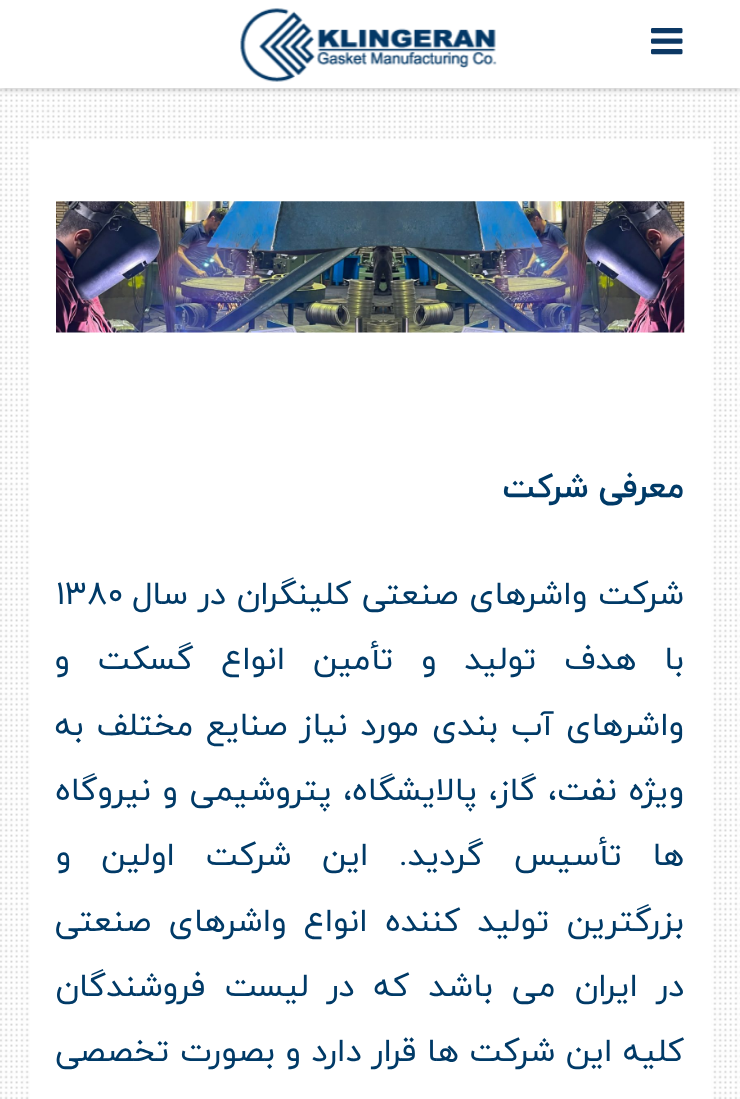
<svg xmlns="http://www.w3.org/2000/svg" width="740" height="1099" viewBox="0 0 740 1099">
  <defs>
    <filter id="blur1" x="-50%" y="-200%" width="200%" height="500%"><feGaussianBlur stdDeviation="2.5"/></filter>
  </defs>
  <rect width="100%" height="100%" fill="#ffffff"/>
  <image x="0" y="88" width="740" height="1011" href="img1.png"/>
  <rect x="0" y="4" width="740" height="87" fill="#000000" fill-opacity="0.15" filter="url(#blur1)"/>
  <rect x="0" y="0" width="740" height="88" fill="#ffffff"/>
  <image x="651" y="28" width="32" height="27" href="img2.png"/>
  <image x="240" y="8" width="257" height="74" href="img3.png"/>
  <rect x="30" y="140" width="681" height="959" fill="#ffffff"/>
  <image x="56" y="201" width="629" height="132" href="img4.png"/>
  <text x="684" y="497" font-family="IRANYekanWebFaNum" font-size="32.7" font-weight="bold" direction="rtl" fill="#003a67">معرفی شرکت</text>
  <text x="684" y="604" word-spacing="0.5" font-family="IRANYekanWebFaNum" font-size="32.7" direction="rtl" fill="#003a67">شرکت واشرهای صنعتی کلینگران در سال</text>
  <text x="56" y="604" font-family="IRANYekanWebFaNum" font-size="32.7" fill="#003a67">1380</text>
  <text x="684" y="669" word-spacing="17.5" font-family="IRANYekanWebFaNum" font-size="32.7" direction="rtl" fill="#003a67">با هدف تولید و تأمین انواع گسکت و</text>
  <text x="684" y="735" word-spacing="2.5" font-family="IRANYekanWebFaNum" font-size="32.7" direction="rtl" fill="#003a67">واشرهای آب بندی مورد نیاز صنایع مختلف به</text>
  <text x="684" y="800" word-spacing="1.5" font-family="IRANYekanWebFaNum" font-size="32.7" direction="rtl" fill="#003a67">ویژه نفت، گاز، پالایشگاه، پتروشیمی و نیروگاه</text>
  <text x="684" y="865" word-spacing="20" font-family="IRANYekanWebFaNum" font-size="32.7" direction="rtl" fill="#003a67">ها تأسیس گردید. این شرکت اولین و</text>
  <text x="684" y="931" word-spacing="7" font-family="IRANYekanWebFaNum" font-size="32.7" direction="rtl" fill="#003a67">بزرگترین تولید کننده انواع واشرهای صنعتی</text>
  <text x="684" y="996" word-spacing="8.75" font-family="IRANYekanWebFaNum" font-size="32.7" direction="rtl" fill="#003a67">در ایران می باشد که در لیست فروشندگان</text>
  <text x="684" y="1061" word-spacing="0.25" font-family="IRANYekanWebFaNum" font-size="32.7" direction="rtl" fill="#003a67">کلیه این شرکت ها قرار دارد و بصورت تخصصی</text>
</svg>
